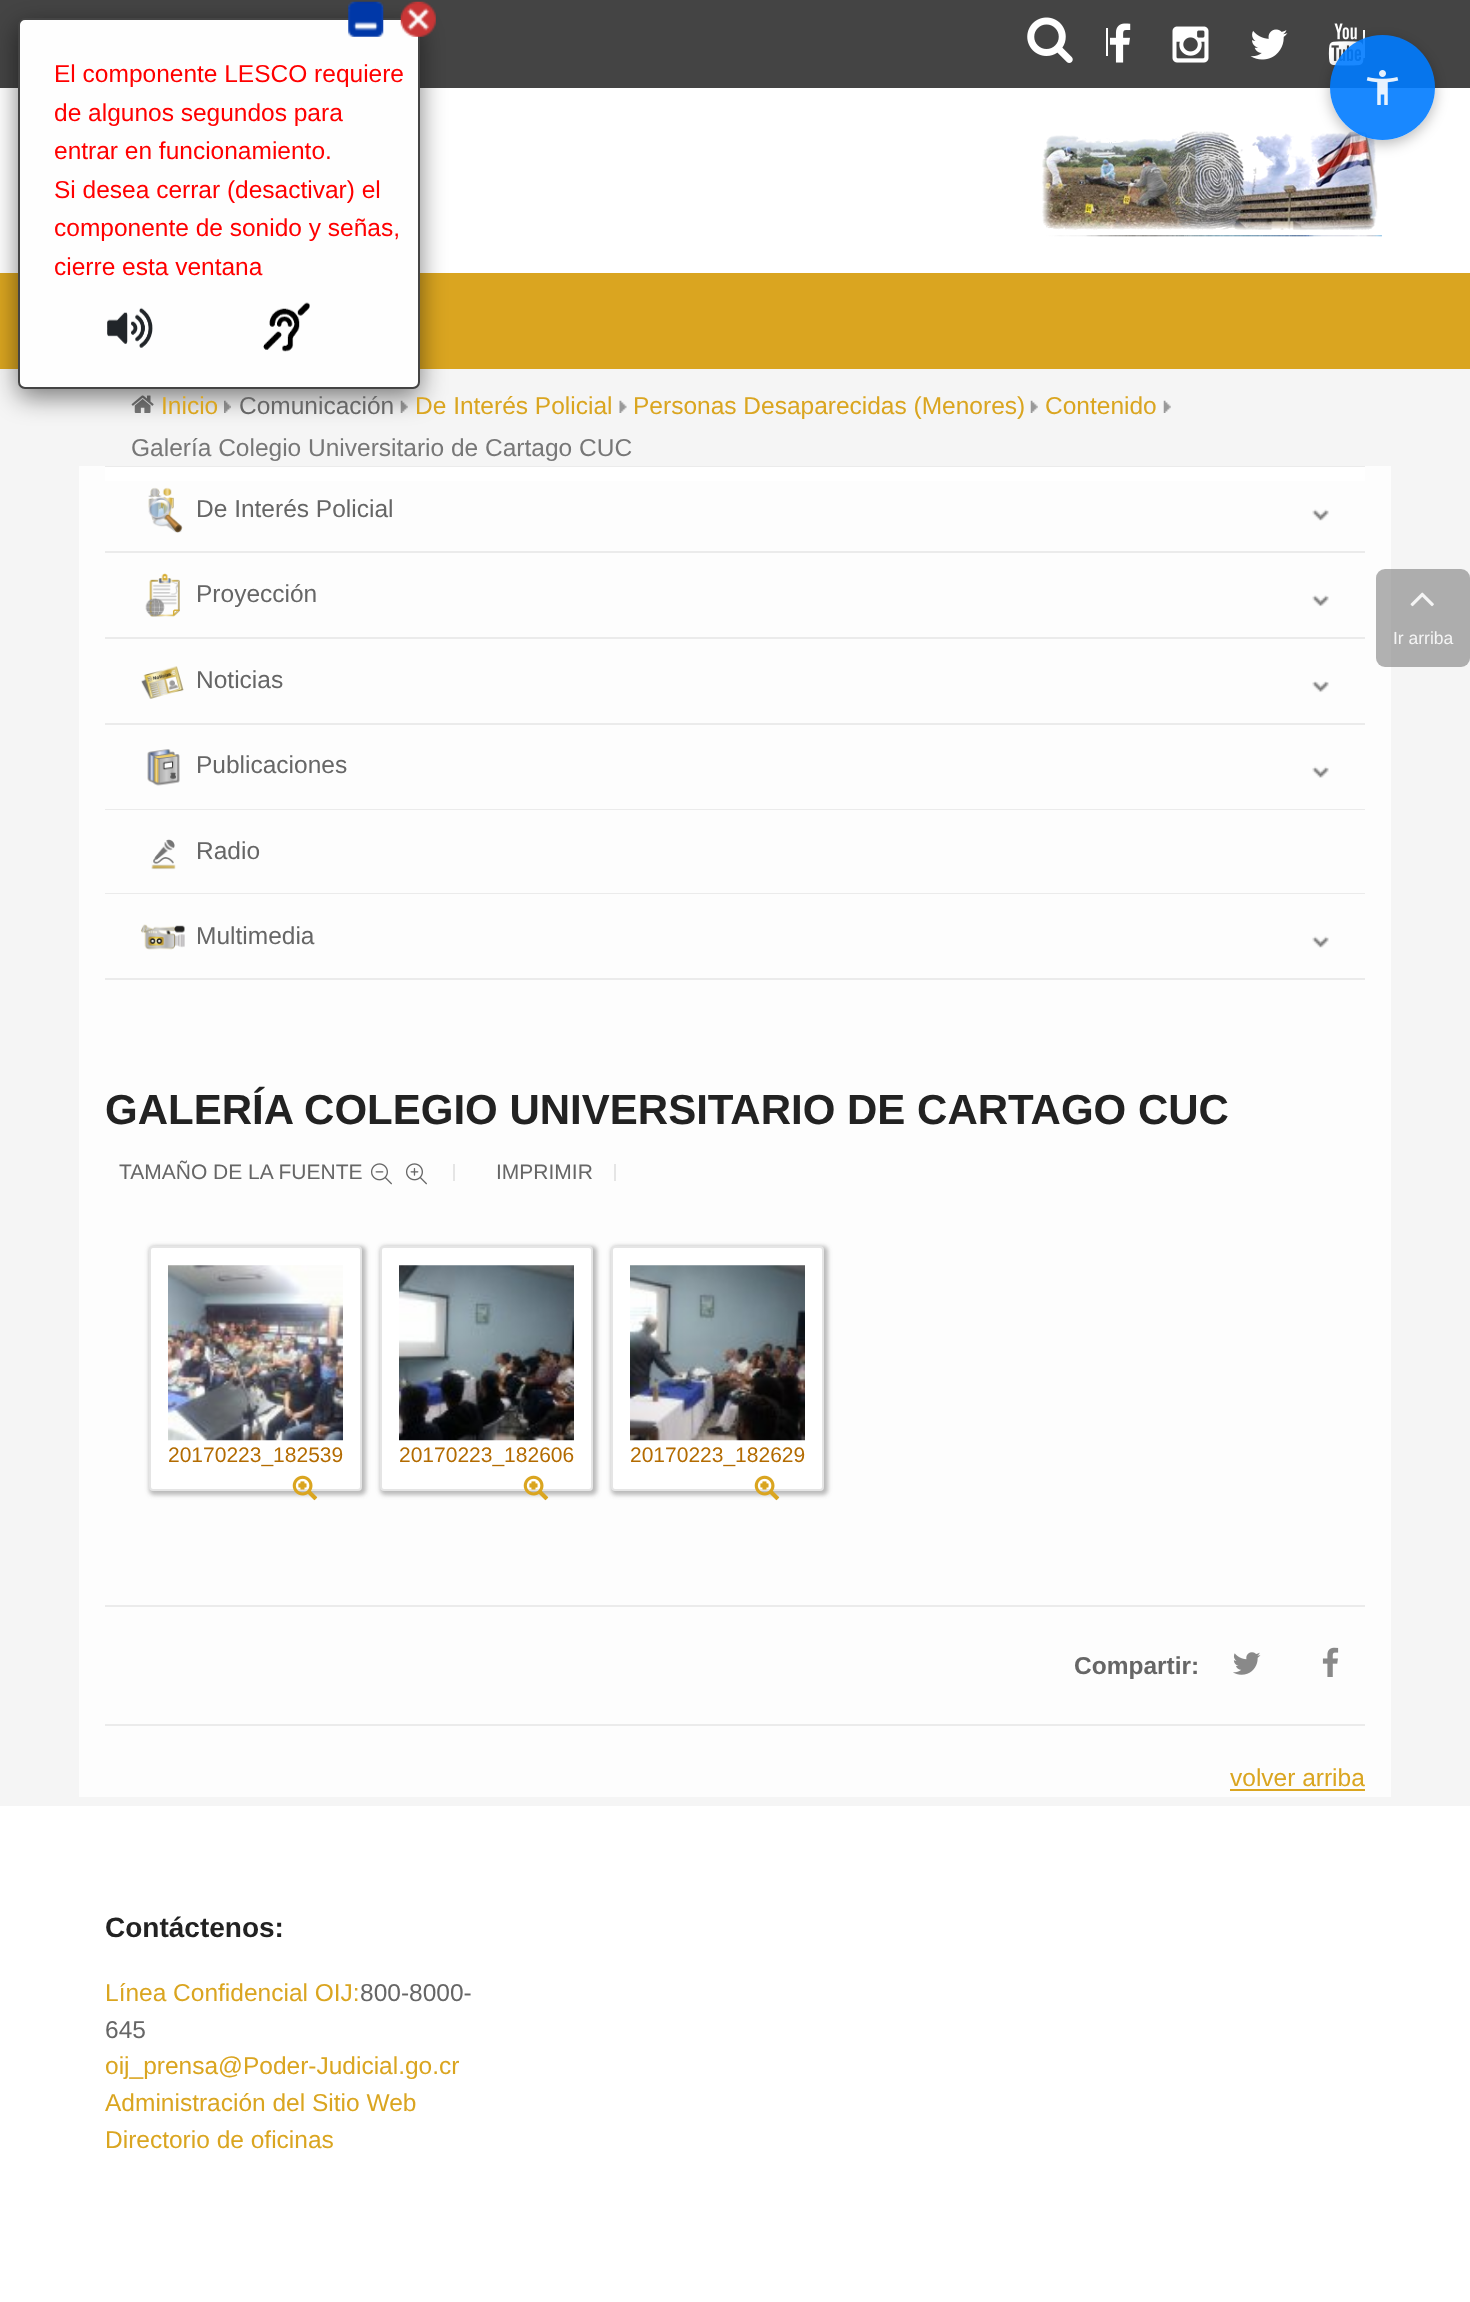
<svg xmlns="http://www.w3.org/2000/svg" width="1470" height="2302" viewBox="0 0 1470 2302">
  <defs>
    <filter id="blur1" x="-50%" y="-200%" width="200%" height="500%"><feGaussianBlur stdDeviation="13"/></filter>
    <clipPath id="clip1"><path d="M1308 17H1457V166H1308ZM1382.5 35C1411.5 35 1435 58.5 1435 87.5C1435 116.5 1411.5 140 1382.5 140C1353.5 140 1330 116.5 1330 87.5C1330 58.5 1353.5 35 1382.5 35Z" clip-rule="evenodd"/></clipPath>
    <filter id="blur2" x="-50%" y="-200%" width="200%" height="500%"><feGaussianBlur stdDeviation="7"/></filter>
    <filter id="blur3" x="-50%" y="-200%" width="200%" height="500%"><feGaussianBlur stdDeviation="2"/></filter>
  </defs>
  <rect width="100%" height="100%" fill="#ffffff"/>
  <rect x="0" y="0" width="1470" height="88" fill="#444444"/>
  <rect x="0" y="273" width="1470" height="96" fill="#daa520"/>
  <rect x="0" y="369" width="1470" height="1437" fill="#f5f5f5"/>
  <rect x="79" y="466" width="1312" height="1331" fill="#fdfdfd"/>
  <rect x="105" y="369" width="1260" height="112" rx="7" fill="#f5f5f5"/>
  <image x="131" y="395" width="23" height="18" href="img12.png"/>
  <image x="224" y="400" width="7" height="13" href="img13.png"/>
  <image x="400" y="400" width="8" height="13" href="img14.png"/>
  <rect x="18" y="26" width="402" height="371" rx="7" fill="#000000" fill-opacity="0.5" filter="url(#blur1)"/>
  <rect x="19" y="19" width="400" height="369" rx="6" fill="#fefefe" stroke="#444444" stroke-width="2"/>
  <image x="348" y="1" width="36" height="36" href="img1.png"/>
  <image x="400" y="1" width="36" height="36" href="img2.png"/>
  <text x="54" y="82" font-family="Liberation Sans" font-size="24.5" fill="#ff0000">El componente LESCO requiere</text>
  <text x="54" y="121" font-family="Liberation Sans" font-size="24.5" fill="#ff0000">de algunos segundos para</text>
  <text x="54" y="159" font-family="Liberation Sans" font-size="24.5" fill="#ff0000">entrar en funcionamiento.</text>
  <text x="54" y="198" font-family="Liberation Sans" font-size="24.5" fill="#ff0000">Si desea cerrar (desactivar) el</text>
  <text x="54" y="236" font-family="Liberation Sans" font-size="24.5" fill="#ff0000">componente de sonido y señas,</text>
  <text x="54" y="275" font-family="Liberation Sans" font-size="24.5" fill="#ff0000">cierre esta ventana</text>
  <image x="107" y="307" width="46" height="41" href="img3.png"/>
  <image x="263" y="302" width="47" height="50" href="img4.png"/>
  <image x="1328" y="23" width="36" height="43" href="img10.png"/>
  <rect x="1363" y="30" width="2" height="28" fill="#ffffff"/>
  <image x="1042" y="131" width="340" height="106" href="img11.png"/>
  <g clip-path="url(#clip1)">
    <rect x="1330" y="39" width="105" height="105" rx="52.5" fill="#000000" fill-opacity="0.27" filter="url(#blur2)"/>
  </g>
  <circle cx="1382.5" cy="87.5" r="52.5" fill="#007bff" fill-opacity="0.9"/>
  <image x="1366" y="70" width="33" height="35" href="img5.png"/>
  <image x="1027" y="17" width="46" height="46" href="img6.png"/>
  <rect x="1106" y="28" width="2" height="28" fill="#ffffff"/>
  <image x="1109" y="23" width="22" height="40" href="img7.png"/>
  <image x="1172" y="26" width="37" height="37" href="img8.png"/>
  <image x="1250" y="29" width="38" height="31" href="img9.png"/>
  <text x="161" y="414" font-family="Liberation Sans" font-size="24.5" fill="#daa520">Inicio</text>
  <text x="239" y="414" font-family="Liberation Sans" font-size="24.5" fill="#666666">Comunicación</text>
  <text x="415" y="414" font-family="Liberation Sans" font-size="24.5" fill="#daa520">De Interés Policial</text>
  <image x="619" y="400" width="8" height="13" href="img15.png"/>
  <text x="633" y="414" font-family="Liberation Sans" font-size="24.5" fill="#daa520">Personas Desaparecidas (Menores)</text>
  <image x="1030" y="400" width="8" height="13" href="img14.png"/>
  <text x="1045" y="414" font-family="Liberation Sans" font-size="24.5" fill="#daa520">Contenido</text>
  <image x="1163" y="400" width="8" height="13" href="img14.png"/>
  <text x="131" y="456" font-family="Liberation Sans" font-size="24.5" fill="#777777">Galería Colegio Universitario de Cartago CUC</text>
  <rect x="105" y="466" width="1260" height="1" fill="#ebebeb"/>
  <rect x="105" y="467" width="1260" height="14" fill="#ffffff"/>
  <rect x="105" y="551" width="1260" height="2" fill="#ebebeb"/>
  <image x="148" y="487" width="35" height="46" href="img16.png"/>
  <text x="196" y="517" font-family="Liberation Sans" font-size="24.5" fill="#666666">De Interés Policial</text>
  <image x="1312" y="509" width="17" height="12" href="img17.png"/>
  <rect x="105" y="637" width="1260" height="2" fill="#ebebeb"/>
  <image x="145" y="573" width="35" height="44" href="img18.png"/>
  <text x="196" y="602" font-family="Liberation Sans" font-size="24.5" fill="#666666">Proyección</text>
  <image x="1312" y="595" width="17" height="12" href="img19.png"/>
  <rect x="105" y="723" width="1260" height="2" fill="#ebebeb"/>
  <image x="141" y="666" width="43" height="33" href="img20.png"/>
  <text x="196" y="688" font-family="Liberation Sans" font-size="24.5" fill="#666666">Noticias</text>
  <image x="1312" y="681" width="17" height="12" href="img21.png"/>
  <rect x="105" y="809" width="1260" height="1" fill="#ebebeb"/>
  <image x="147" y="749" width="33" height="37" href="img22.png"/>
  <text x="196" y="773" font-family="Liberation Sans" font-size="24.5" fill="#666666">Publicaciones</text>
  <image x="1312" y="766" width="17" height="12" href="img23.png"/>
  <rect x="105" y="893" width="1260" height="1" fill="#ebebeb"/>
  <image x="151" y="839" width="25" height="31" href="img24.png"/>
  <text x="196" y="859" font-family="Liberation Sans" font-size="24.5" fill="#666666">Radio</text>
  <rect x="105" y="978" width="1260" height="2" fill="#ebebeb"/>
  <image x="141" y="924" width="44" height="26" href="img25.png"/>
  <text x="196" y="944" font-family="Liberation Sans" font-size="24.5" fill="#666666">Multimedia</text>
  <image x="1312" y="936" width="17" height="12" href="img17.png"/>
  <text x="105" y="1124" font-family="Liberation Sans" font-size="42" font-weight="bold" fill="#222222">GALERÍA COLEGIO UNIVERSITARIO DE CARTAGO CUC</text>
  <text x="119" y="1179" font-family="Liberation Sans" font-size="21" fill="#666666">TAMAÑO DE LA FUENTE</text>
  <image x="371" y="1163" width="21" height="22" href="img26.png"/>
  <image x="406" y="1163" width="21" height="22" href="img27.png"/>
  <rect x="453" y="1164" width="2" height="17" fill="#e5e5e5"/>
  <text x="496" y="1179" font-family="Liberation Sans" font-size="21" fill="#666666">IMPRIMIR</text>
  <rect x="614" y="1164" width="2" height="17" fill="#e5e5e5"/>
  <rect x="149" y="1246" width="217" height="249" rx="5" fill="#787878" fill-opacity="0.5" filter="url(#blur3)"/>
  <rect x="150" y="1247" width="211" height="243" rx="3" fill="#ffffff" stroke="#e5e5e5" stroke-width="2"/>
  <image x="168" y="1265" width="175" height="176" href="img28.png"/>
  <text x="168" y="1462" font-family="Liberation Sans" font-size="21" fill="#b36b00">20170223_182539</text>
  <image x="292" y="1475" width="26" height="26" href="img29.png"/>
  <rect x="380" y="1246" width="217" height="249" rx="5" fill="#787878" fill-opacity="0.5" filter="url(#blur3)"/>
  <rect x="381" y="1247" width="211" height="243" rx="3" fill="#ffffff" stroke="#e5e5e5" stroke-width="2"/>
  <image x="399" y="1265" width="175" height="176" href="img30.png"/>
  <text x="399" y="1462" font-family="Liberation Sans" font-size="21" fill="#b36b00">20170223_182606</text>
  <image x="523" y="1475" width="26" height="26" href="img29.png"/>
  <rect x="611" y="1246" width="217" height="249" rx="5" fill="#787878" fill-opacity="0.5" filter="url(#blur3)"/>
  <rect x="612" y="1247" width="211" height="243" rx="3" fill="#ffffff" stroke="#e5e5e5" stroke-width="2"/>
  <image x="630" y="1265" width="175" height="176" href="img31.png"/>
  <text x="630" y="1462" font-family="Liberation Sans" font-size="21" fill="#b36b00">20170223_182629</text>
  <image x="754" y="1475" width="26" height="26" href="img29.png"/>
  <rect x="105" y="1605" width="1260" height="2" fill="#ebebeb"/>
  <rect x="105" y="1724" width="1260" height="2" fill="#ebebeb"/>
  <text x="1074" y="1674" font-family="Liberation Sans" font-size="24.5" font-weight="bold" fill="#666666">Compartir:</text>
  <image x="1233" y="1652" width="28" height="23" href="img32.png"/>
  <image x="1322" y="1647" width="17" height="30" href="img33.png"/>
  <text x="1230" y="1786" font-family="Liberation Sans" font-size="24.5" fill="#daa520">volver arriba</text>
  <rect x="1230" y="1789" width="135" height="2" fill="#daa520"/>
  <text x="105" y="1937" font-family="Liberation Sans" font-size="28" font-weight="bold" fill="#222222">Contáctenos:</text>
  <text x="105" y="2001" font-family="Liberation Sans" font-size="24.5" fill="#daa520">Línea Confidencial OIJ:</text>
  <text x="360" y="2001" font-family="Liberation Sans" font-size="24.5" fill="#666666">800-8000-</text>
  <text x="105" y="2038" font-family="Liberation Sans" font-size="24.5" fill="#666666">645</text>
  <text x="105" y="2074" font-family="Liberation Sans" font-size="24.5" fill="#daa520">oij_prensa@Poder-Judicial.go.cr</text>
  <text x="105" y="2111" font-family="Liberation Sans" font-size="24.5" fill="#daa520">Administración del Sitio Web</text>
  <text x="105" y="2148" font-family="Liberation Sans" font-size="24.5" fill="#daa520">Directorio de oficinas</text>
  <rect x="1376" y="569" width="94" height="98" rx="9" fill="#666666" fill-opacity="0.5"/>
  <image x="1410" y="592" width="24" height="15" href="img34.png"/>
  <text x="1393" y="644" font-family="Liberation Sans" font-size="17.5" fill="#f5f5f5">Ir arriba</text>
</svg>
